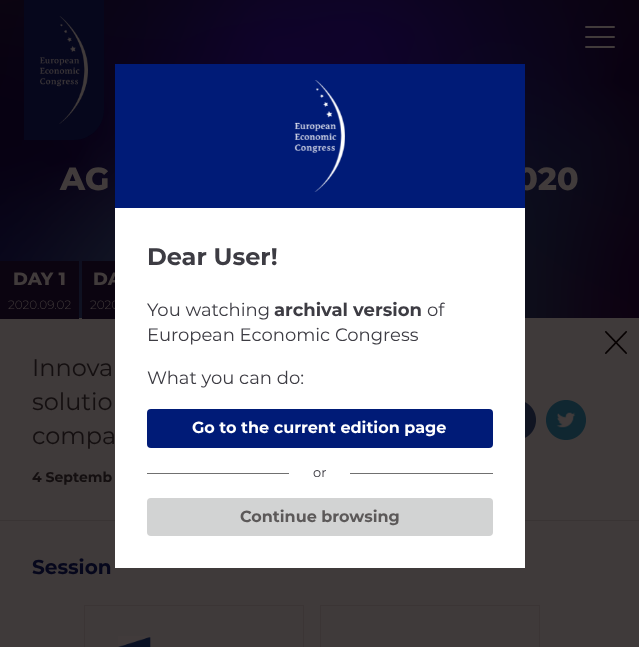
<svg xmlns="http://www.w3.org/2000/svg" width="639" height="647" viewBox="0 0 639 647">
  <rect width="100%" height="100%" fill="#3f3a3a"/>
  <image x="0" y="0" width="639" height="318" href="img2.png"/>
  <path d="M24 0H104V110C104 126.5 90.5 140 74 140H24Z" fill="#06071c"/>
  <image x="40" y="16" width="48" height="108" href="img1.png"/>
  <rect x="585" y="26" width="30" height="2" rx="1" fill="#413b3b"/>
  <rect x="585" y="36" width="30" height="2" rx="1" fill="#413b3b"/>
  <rect x="585" y="46" width="30" height="2" rx="1" fill="#413b3b"/>
  <text x="60" y="190" font-family="Montserrat" font-size="32" font-weight="800" fill="#413b3b">AG</text>
  <text x="516" y="190" font-family="Montserrat" font-size="32" font-weight="800" fill="#413b3b">020</text>
  <rect x="0" y="261" width="79" height="58" fill="#0b0410"/>
  <text x="13" y="285" font-family="Montserrat" font-size="18" font-weight="800" fill="#413b3b">DAY 1</text>
  <text x="8" y="309" font-family="Montserrat" font-size="12" font-weight="300" fill="#413b3b">2020.09.02</text>
  <rect x="82" y="261" width="33" height="58" fill="#0b0410"/>
  <text x="93" y="285" font-family="Montserrat" font-size="18" font-weight="800" fill="#413b3b">DA</text>
  <text x="90" y="309" font-family="Montserrat" font-size="12" font-weight="300" fill="#413b3b">2020</text>
  <image x="605" y="331" width="22" height="23" href="img3.png"/>
  <text x="32" y="376" font-family="Montserrat" font-size="24" fill="#140f10">Innova</text>
  <text x="32" y="410" font-family="Montserrat" font-size="24" fill="#140f10">solutio</text>
  <text x="32" y="444" font-family="Montserrat" font-size="24" fill="#140f10">compa</text>
  <image x="525" y="402" width="11" height="36" href="img4.png"/>
  <image x="546" y="400" width="40" height="40" href="img5.png"/>
  <text x="32" y="482" font-family="Montserrat" font-size="14" font-weight="bold" fill="#140f10">4 Septemb</text>
  <rect x="0" y="520" width="639" height="1" fill="#393434"/>
  <text x="32" y="574" font-family="Montserrat" font-size="20" font-weight="bold" fill="#06071c">Session</text>
  <rect x="84.5" y="605.5" width="219" height="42" fill="none" stroke="#3b3535"/>
  <image x="118" y="636" width="33" height="11" href="img6.png"/>
  <rect x="320.5" y="605.5" width="219" height="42" fill="none" stroke="#3b3535"/>
  <rect x="115" y="208" width="410" height="360" fill="#ffffff"/>
  <rect x="115" y="64" width="410" height="144" fill="#001b77"/>
  <image x="294" y="80" width="51" height="112" href="img7.png"/>
  <text x="147" y="265" font-family="Montserrat" font-size="24" font-weight="bold" fill="#3d3c43">Dear User!</text>
  <text x="147" y="316" font-family="Montserrat" font-size="18" fill="#3d3c43">You watching</text>
  <text x="274" y="316" font-family="Montserrat" font-size="18" font-weight="bold" fill="#3d3c43">archival version</text>
  <text x="427" y="316" font-family="Montserrat" font-size="18" fill="#3d3c43">of</text>
  <text x="147" y="341" font-family="Montserrat" font-size="18" fill="#3d3c43">European Economic Congress</text>
  <text x="147" y="384" font-family="Montserrat" font-size="18" fill="#3d3c43">What you can do:</text>
  <rect x="147" y="409" width="346" height="39" rx="4" fill="#001b77"/>
  <text x="192" y="433" font-family="Montserrat" font-size="16" font-weight="bold" fill="#ffffff">Go to the current edition page</text>
  <rect x="147" y="473" width="346" height="1" fill="#707070"/>
  <rect x="289" y="473" width="61" height="1" fill="#ffffff"/>
  <text x="313" y="477" font-family="Montserrat" font-size="13" fill="#3d3c43">or</text>
  <rect x="147" y="498" width="346" height="38" rx="4" fill="#d2d3d3"/>
  <text x="240" y="522" font-family="Montserrat" font-size="16" font-weight="bold" fill="#5c5959">Continue browsing</text>
</svg>
